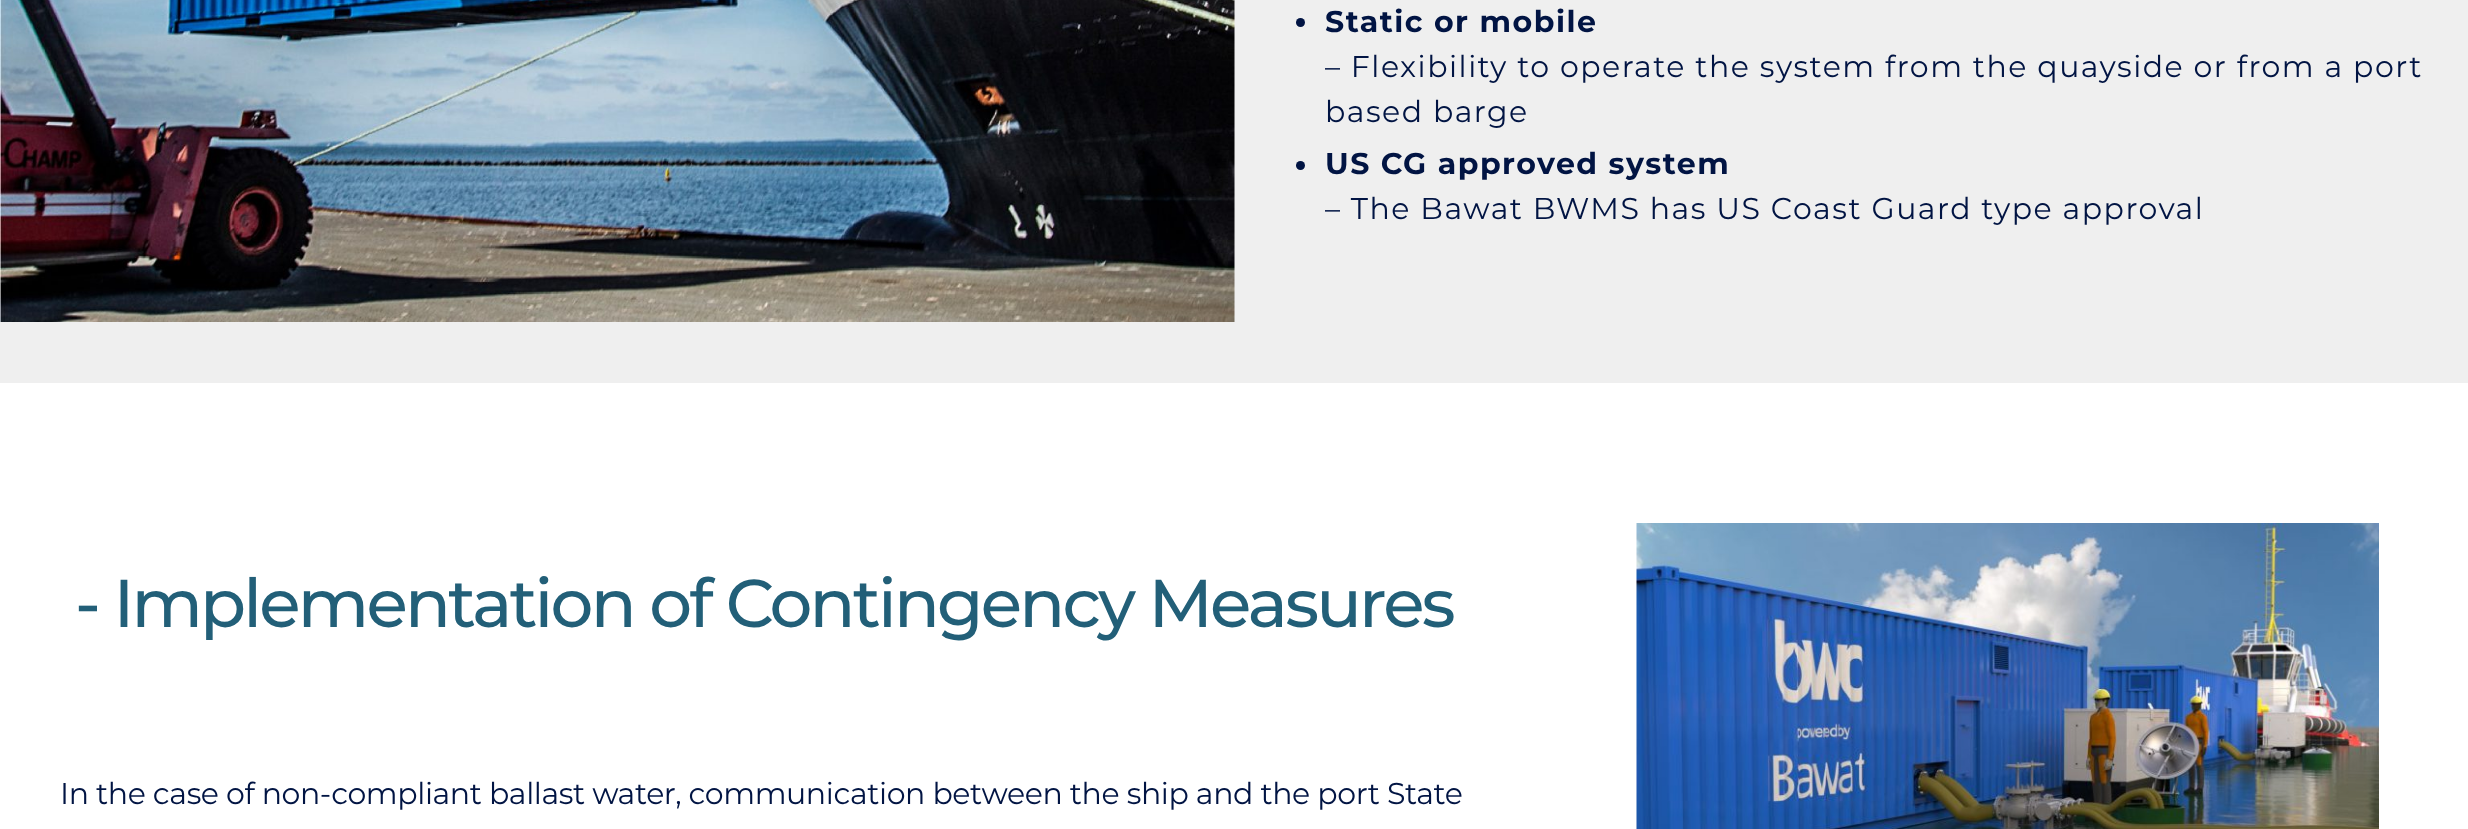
<svg xmlns="http://www.w3.org/2000/svg" width="2468" height="829" viewBox="0 0 2468 829">
  <rect width="100%" height="100%" fill="#ffffff"/>
  <rect x="0" y="0" width="2468" height="383" fill="#efefef"/>
  <image x="0" y="0" width="1235" height="322" href="img1.png"/>
  <circle cx="1300.5" cy="22.5" r="4.5" fill="#011443"/>
  <text x="1325" y="32" font-family="Montserrat" font-size="30" font-weight="bold" letter-spacing="1.5" fill="#011443">Static or mobile</text>
  <text x="1325" y="77" font-family="Montserrat" font-size="30" letter-spacing="1.5" fill="#011443">– Flexibility to operate the system from the quayside or from a port</text>
  <text x="1325" y="122" font-family="Montserrat" font-size="30" letter-spacing="1.5" fill="#011443">based barge</text>
  <circle cx="1300.5" cy="165.5" r="4.5" fill="#011443"/>
  <text x="1325" y="174" font-family="Montserrat" font-size="30" font-weight="bold" letter-spacing="1.5" fill="#011443">US CG approved system</text>
  <text x="1325" y="219" font-family="Montserrat" font-size="30" letter-spacing="1.5" fill="#011443">– The Bawat BWMS has US Coast Guard type approval</text>
  <text x="75" y="627" font-family="Montserrat" font-size="67.5" font-weight="500" letter-spacing="-2.8" fill="#225f78">- Implementation of Contingency Measures</text>
  <text x="60" y="804" font-family="Montserrat" font-size="30" letter-spacing="-0.4" fill="#011443">In the case of non-compliant ballast water, communication between the ship and the port State</text>
  <image x="1636" y="523" width="743" height="306" href="img2.png"/>
</svg>
